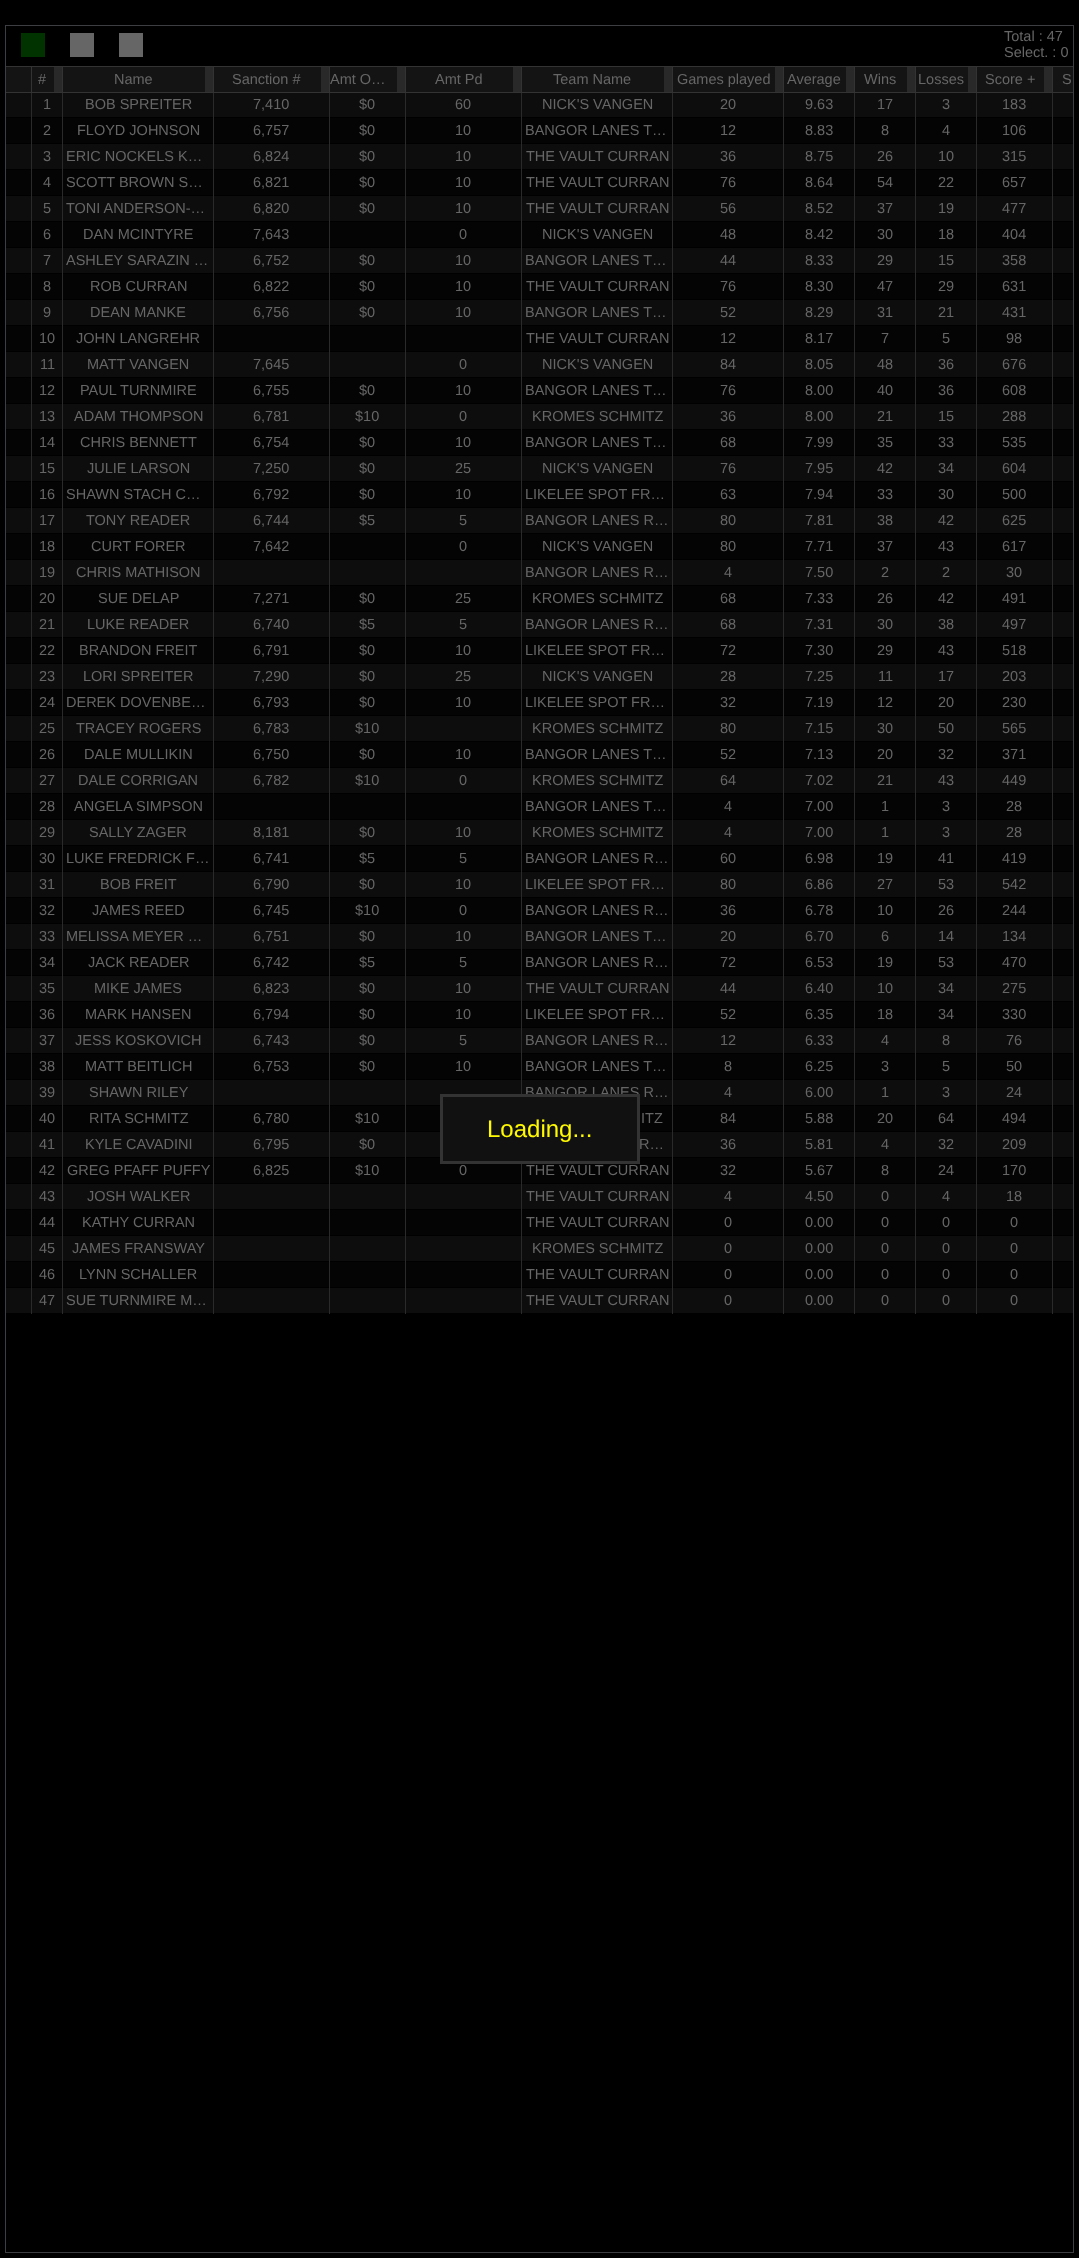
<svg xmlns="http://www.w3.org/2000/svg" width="1079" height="2258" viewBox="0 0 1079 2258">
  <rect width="100%" height="100%" fill="#000000"/>
  <rect x="5.5" y="25.5" width="1068" height="2227" fill="none" stroke="#3d3e42"/>
  <rect x="21" y="33" width="24" height="24" fill="#003300"/>
  <rect x="70" y="33" width="24" height="24" fill="#666666"/>
  <rect x="119" y="33" width="24" height="24" fill="#666666"/>
  <text x="1004" y="41" font-family="Liberation Sans" font-size="14.5" fill="#666666">Total : 47</text>
  <text x="1004" y="57" font-family="Liberation Sans" font-size="14.5" fill="#666666">Select. : 0</text>
  <rect x="6" y="67" width="25" height="25" fill="#141414"/>
  <rect x="6" y="66" width="1067" height="1" fill="#333333"/>
  <rect x="6" y="93" width="1067" height="24" fill="#0d0d0d"/>
  <rect x="6" y="118" width="1067" height="25" fill="#040404"/>
  <rect x="6" y="144" width="1067" height="25" fill="#0d0d0d"/>
  <rect x="6" y="170" width="1067" height="25" fill="#040404"/>
  <rect x="6" y="196" width="1067" height="25" fill="#0d0d0d"/>
  <rect x="6" y="222" width="1067" height="25" fill="#040404"/>
  <rect x="6" y="248" width="1067" height="25" fill="#0d0d0d"/>
  <rect x="6" y="274" width="1067" height="25" fill="#040404"/>
  <rect x="6" y="300" width="1067" height="25" fill="#0d0d0d"/>
  <rect x="6" y="326" width="1067" height="25" fill="#040404"/>
  <rect x="6" y="352" width="1067" height="25" fill="#0d0d0d"/>
  <rect x="6" y="378" width="1067" height="25" fill="#040404"/>
  <rect x="6" y="404" width="1067" height="25" fill="#0d0d0d"/>
  <rect x="6" y="430" width="1067" height="25" fill="#040404"/>
  <rect x="6" y="456" width="1067" height="25" fill="#0d0d0d"/>
  <rect x="6" y="482" width="1067" height="25" fill="#040404"/>
  <rect x="6" y="508" width="1067" height="25" fill="#0d0d0d"/>
  <rect x="6" y="534" width="1067" height="25" fill="#040404"/>
  <rect x="6" y="560" width="1067" height="25" fill="#0d0d0d"/>
  <rect x="6" y="586" width="1067" height="25" fill="#040404"/>
  <rect x="6" y="612" width="1067" height="25" fill="#0d0d0d"/>
  <rect x="6" y="638" width="1067" height="25" fill="#040404"/>
  <rect x="6" y="664" width="1067" height="25" fill="#0d0d0d"/>
  <rect x="6" y="690" width="1067" height="25" fill="#040404"/>
  <rect x="6" y="716" width="1067" height="25" fill="#0d0d0d"/>
  <rect x="6" y="742" width="1067" height="25" fill="#040404"/>
  <rect x="6" y="768" width="1067" height="25" fill="#0d0d0d"/>
  <rect x="6" y="794" width="1067" height="25" fill="#040404"/>
  <rect x="6" y="820" width="1067" height="25" fill="#0d0d0d"/>
  <rect x="6" y="846" width="1067" height="25" fill="#040404"/>
  <rect x="6" y="872" width="1067" height="25" fill="#0d0d0d"/>
  <rect x="6" y="898" width="1067" height="25" fill="#040404"/>
  <rect x="6" y="924" width="1067" height="25" fill="#0d0d0d"/>
  <rect x="6" y="950" width="1067" height="25" fill="#040404"/>
  <rect x="6" y="976" width="1067" height="25" fill="#0d0d0d"/>
  <rect x="6" y="1002" width="1067" height="25" fill="#040404"/>
  <rect x="6" y="1028" width="1067" height="25" fill="#0d0d0d"/>
  <rect x="6" y="1054" width="1067" height="25" fill="#040404"/>
  <rect x="6" y="1080" width="1067" height="25" fill="#0d0d0d"/>
  <rect x="6" y="1106" width="1067" height="25" fill="#040404"/>
  <rect x="6" y="1132" width="1067" height="25" fill="#0d0d0d"/>
  <rect x="6" y="1158" width="1067" height="25" fill="#040404"/>
  <rect x="6" y="1184" width="1067" height="25" fill="#0d0d0d"/>
  <rect x="6" y="1210" width="1067" height="25" fill="#040404"/>
  <rect x="6" y="1236" width="1067" height="25" fill="#0d0d0d"/>
  <rect x="6" y="1262" width="1067" height="25" fill="#040404"/>
  <rect x="6" y="1288" width="1067" height="25" fill="#0d0d0d"/>
  <rect x="1052" y="92" width="1" height="1222" fill="#2a2a2a"/>
  <rect x="1052" y="92" width="21" height="1" fill="#333333"/>
  <rect x="1052" y="66" width="1" height="27" fill="#333333"/>
  <rect x="976" y="92" width="1" height="1222" fill="#2a2a2a"/>
  <rect x="976" y="92" width="77" height="1" fill="#333333"/>
  <rect x="976" y="66" width="1" height="27" fill="#333333"/>
  <rect x="915" y="92" width="1" height="1222" fill="#2a2a2a"/>
  <rect x="915" y="92" width="62" height="1" fill="#333333"/>
  <rect x="915" y="66" width="1" height="27" fill="#333333"/>
  <rect x="854" y="92" width="1" height="1222" fill="#2a2a2a"/>
  <rect x="854" y="92" width="62" height="1" fill="#333333"/>
  <rect x="854" y="66" width="1" height="27" fill="#333333"/>
  <rect x="783" y="92" width="1" height="1222" fill="#2a2a2a"/>
  <rect x="783" y="92" width="72" height="1" fill="#333333"/>
  <rect x="783" y="66" width="1" height="27" fill="#333333"/>
  <rect x="672" y="92" width="1" height="1222" fill="#2a2a2a"/>
  <rect x="672" y="92" width="112" height="1" fill="#333333"/>
  <rect x="672" y="66" width="1" height="27" fill="#333333"/>
  <rect x="521" y="92" width="1" height="1002" fill="#2a2a2a"/>
  <rect x="521" y="92" width="152" height="1" fill="#333333"/>
  <rect x="521" y="66" width="1" height="27" fill="#333333"/>
  <rect x="405" y="92" width="1" height="1222" fill="#2a2a2a"/>
  <rect x="405" y="92" width="117" height="1" fill="#333333"/>
  <rect x="405" y="66" width="1" height="27" fill="#333333"/>
  <rect x="329" y="92" width="1" height="1222" fill="#2a2a2a"/>
  <rect x="329" y="92" width="77" height="1" fill="#333333"/>
  <rect x="329" y="66" width="1" height="27" fill="#333333"/>
  <rect x="213" y="92" width="1" height="1222" fill="#2a2a2a"/>
  <rect x="213" y="92" width="117" height="1" fill="#333333"/>
  <rect x="213" y="66" width="1" height="27" fill="#333333"/>
  <rect x="62" y="92" width="1" height="1222" fill="#2a2a2a"/>
  <rect x="62" y="92" width="152" height="1" fill="#333333"/>
  <rect x="62" y="66" width="1" height="27" fill="#333333"/>
  <rect x="31" y="92" width="1" height="1222" fill="#2a2a2a"/>
  <rect x="31" y="92" width="32" height="1" fill="#333333"/>
  <rect x="31" y="66" width="1" height="27" fill="#333333"/>
  <rect x="6" y="92" width="26" height="1" fill="#333333"/>
  <rect x="32" y="67" width="22" height="25" fill="#141414"/>
  <text x="38" y="84" font-family="Liberation Sans" font-size="14.5" fill="#666666">#</text>
  <rect x="54" y="67" width="8" height="25" fill="#292929"/>
  <rect x="63" y="67" width="142" height="25" fill="#141414"/>
  <text x="114" y="84" font-family="Liberation Sans" font-size="14.5" fill="#666666">Name</text>
  <rect x="205" y="67" width="8" height="25" fill="#292929"/>
  <rect x="214" y="67" width="107" height="25" fill="#141414"/>
  <text x="232" y="84" font-family="Liberation Sans" font-size="14.5" fill="#666666">Sanction #</text>
  <rect x="321" y="67" width="8" height="25" fill="#292929"/>
  <rect x="330" y="67" width="67" height="25" fill="#141414"/>
  <text x="330" y="84" font-family="Liberation Sans" font-size="14.5" fill="#666666">Amt O…</text>
  <rect x="397" y="67" width="8" height="25" fill="#292929"/>
  <rect x="406" y="67" width="107" height="25" fill="#141414"/>
  <text x="435" y="84" font-family="Liberation Sans" font-size="14.5" fill="#666666">Amt Pd</text>
  <rect x="513" y="67" width="8" height="25" fill="#292929"/>
  <rect x="522" y="67" width="142" height="25" fill="#141414"/>
  <text x="553" y="84" font-family="Liberation Sans" font-size="14.5" fill="#666666">Team Name</text>
  <rect x="664" y="67" width="8" height="25" fill="#292929"/>
  <rect x="673" y="67" width="102" height="25" fill="#141414"/>
  <text x="677" y="84" font-family="Liberation Sans" font-size="14.5" fill="#666666">Games played</text>
  <rect x="775" y="67" width="8" height="25" fill="#292929"/>
  <rect x="784" y="67" width="62" height="25" fill="#141414"/>
  <text x="787" y="84" font-family="Liberation Sans" font-size="14.5" fill="#666666">Average</text>
  <rect x="846" y="67" width="8" height="25" fill="#292929"/>
  <rect x="855" y="67" width="52" height="25" fill="#141414"/>
  <text x="864" y="84" font-family="Liberation Sans" font-size="14.5" fill="#666666">Wins</text>
  <rect x="907" y="67" width="8" height="25" fill="#292929"/>
  <rect x="916" y="67" width="52" height="25" fill="#141414"/>
  <text x="918" y="84" font-family="Liberation Sans" font-size="14.5" fill="#666666">Losses</text>
  <rect x="968" y="67" width="8" height="25" fill="#292929"/>
  <rect x="977" y="67" width="67" height="25" fill="#141414"/>
  <text x="985" y="84" font-family="Liberation Sans" font-size="14.5" fill="#666666">Score +</text>
  <rect x="1044" y="67" width="8" height="25" fill="#292929"/>
  <rect x="1053" y="67" width="20" height="25" fill="#141414"/>
  <text x="1062" y="84" font-family="Liberation Sans" font-size="14.5" fill="#666666">S</text>
  <text x="43" y="109" font-family="Liberation Sans" font-size="14.5" fill="#666666">1</text>
  <text x="85" y="109" font-family="Liberation Sans" font-size="14.5" fill="#666666">BOB SPREITER</text>
  <text x="253" y="109" font-family="Liberation Sans" font-size="14.5" fill="#666666">7,410</text>
  <text x="359" y="109" font-family="Liberation Sans" font-size="14.5" fill="#666666">$0</text>
  <text x="455" y="109" font-family="Liberation Sans" font-size="14.5" fill="#666666">60</text>
  <text x="542" y="109" font-family="Liberation Sans" font-size="14.5" fill="#666666">NICK'S VANGEN</text>
  <text x="720" y="109" font-family="Liberation Sans" font-size="14.5" fill="#666666">20</text>
  <text x="805" y="109" font-family="Liberation Sans" font-size="14.5" fill="#666666">9.63</text>
  <text x="877" y="109" font-family="Liberation Sans" font-size="14.5" fill="#666666">17</text>
  <text x="942" y="109" font-family="Liberation Sans" font-size="14.5" fill="#666666">3</text>
  <text x="1002" y="109" font-family="Liberation Sans" font-size="14.5" fill="#666666">183</text>
  <text x="43" y="135" font-family="Liberation Sans" font-size="14.5" fill="#666666">2</text>
  <text x="77" y="135" font-family="Liberation Sans" font-size="14.5" fill="#666666">FLOYD JOHNSON</text>
  <text x="253" y="135" font-family="Liberation Sans" font-size="14.5" fill="#666666">6,757</text>
  <text x="359" y="135" font-family="Liberation Sans" font-size="14.5" fill="#666666">$0</text>
  <text x="455" y="135" font-family="Liberation Sans" font-size="14.5" fill="#666666">10</text>
  <text x="525" y="135" font-family="Liberation Sans" font-size="14.5" fill="#666666">BANGOR LANES T…</text>
  <text x="720" y="135" font-family="Liberation Sans" font-size="14.5" fill="#666666">12</text>
  <text x="805" y="135" font-family="Liberation Sans" font-size="14.5" fill="#666666">8.83</text>
  <text x="881" y="135" font-family="Liberation Sans" font-size="14.5" fill="#666666">8</text>
  <text x="942" y="135" font-family="Liberation Sans" font-size="14.5" fill="#666666">4</text>
  <text x="1002" y="135" font-family="Liberation Sans" font-size="14.5" fill="#666666">106</text>
  <text x="43" y="161" font-family="Liberation Sans" font-size="14.5" fill="#666666">3</text>
  <text x="66" y="161" font-family="Liberation Sans" font-size="14.5" fill="#666666">ERIC NOCKELS K…</text>
  <text x="253" y="161" font-family="Liberation Sans" font-size="14.5" fill="#666666">6,824</text>
  <text x="359" y="161" font-family="Liberation Sans" font-size="14.5" fill="#666666">$0</text>
  <text x="455" y="161" font-family="Liberation Sans" font-size="14.5" fill="#666666">10</text>
  <text x="526" y="161" font-family="Liberation Sans" font-size="14.5" fill="#666666">THE VAULT CURRAN</text>
  <text x="720" y="161" font-family="Liberation Sans" font-size="14.5" fill="#666666">36</text>
  <text x="805" y="161" font-family="Liberation Sans" font-size="14.5" fill="#666666">8.75</text>
  <text x="877" y="161" font-family="Liberation Sans" font-size="14.5" fill="#666666">26</text>
  <text x="938" y="161" font-family="Liberation Sans" font-size="14.5" fill="#666666">10</text>
  <text x="1002" y="161" font-family="Liberation Sans" font-size="14.5" fill="#666666">315</text>
  <text x="43" y="187" font-family="Liberation Sans" font-size="14.5" fill="#666666">4</text>
  <text x="66" y="187" font-family="Liberation Sans" font-size="14.5" fill="#666666">SCOTT BROWN S…</text>
  <text x="253" y="187" font-family="Liberation Sans" font-size="14.5" fill="#666666">6,821</text>
  <text x="359" y="187" font-family="Liberation Sans" font-size="14.5" fill="#666666">$0</text>
  <text x="455" y="187" font-family="Liberation Sans" font-size="14.5" fill="#666666">10</text>
  <text x="526" y="187" font-family="Liberation Sans" font-size="14.5" fill="#666666">THE VAULT CURRAN</text>
  <text x="720" y="187" font-family="Liberation Sans" font-size="14.5" fill="#666666">76</text>
  <text x="805" y="187" font-family="Liberation Sans" font-size="14.5" fill="#666666">8.64</text>
  <text x="877" y="187" font-family="Liberation Sans" font-size="14.5" fill="#666666">54</text>
  <text x="938" y="187" font-family="Liberation Sans" font-size="14.5" fill="#666666">22</text>
  <text x="1002" y="187" font-family="Liberation Sans" font-size="14.5" fill="#666666">657</text>
  <text x="43" y="213" font-family="Liberation Sans" font-size="14.5" fill="#666666">5</text>
  <text x="66" y="213" font-family="Liberation Sans" font-size="14.5" fill="#666666">TONI ANDERSON-…</text>
  <text x="253" y="213" font-family="Liberation Sans" font-size="14.5" fill="#666666">6,820</text>
  <text x="359" y="213" font-family="Liberation Sans" font-size="14.5" fill="#666666">$0</text>
  <text x="455" y="213" font-family="Liberation Sans" font-size="14.5" fill="#666666">10</text>
  <text x="526" y="213" font-family="Liberation Sans" font-size="14.5" fill="#666666">THE VAULT CURRAN</text>
  <text x="720" y="213" font-family="Liberation Sans" font-size="14.5" fill="#666666">56</text>
  <text x="805" y="213" font-family="Liberation Sans" font-size="14.5" fill="#666666">8.52</text>
  <text x="877" y="213" font-family="Liberation Sans" font-size="14.5" fill="#666666">37</text>
  <text x="938" y="213" font-family="Liberation Sans" font-size="14.5" fill="#666666">19</text>
  <text x="1002" y="213" font-family="Liberation Sans" font-size="14.5" fill="#666666">477</text>
  <text x="43" y="239" font-family="Liberation Sans" font-size="14.5" fill="#666666">6</text>
  <text x="83" y="239" font-family="Liberation Sans" font-size="14.5" fill="#666666">DAN MCINTYRE</text>
  <text x="253" y="239" font-family="Liberation Sans" font-size="14.5" fill="#666666">7,643</text>
  <text x="459" y="239" font-family="Liberation Sans" font-size="14.5" fill="#666666">0</text>
  <text x="542" y="239" font-family="Liberation Sans" font-size="14.5" fill="#666666">NICK'S VANGEN</text>
  <text x="720" y="239" font-family="Liberation Sans" font-size="14.5" fill="#666666">48</text>
  <text x="805" y="239" font-family="Liberation Sans" font-size="14.5" fill="#666666">8.42</text>
  <text x="877" y="239" font-family="Liberation Sans" font-size="14.5" fill="#666666">30</text>
  <text x="938" y="239" font-family="Liberation Sans" font-size="14.5" fill="#666666">18</text>
  <text x="1002" y="239" font-family="Liberation Sans" font-size="14.5" fill="#666666">404</text>
  <text x="43" y="265" font-family="Liberation Sans" font-size="14.5" fill="#666666">7</text>
  <text x="66" y="265" font-family="Liberation Sans" font-size="14.5" fill="#666666">ASHLEY SARAZIN …</text>
  <text x="253" y="265" font-family="Liberation Sans" font-size="14.5" fill="#666666">6,752</text>
  <text x="359" y="265" font-family="Liberation Sans" font-size="14.5" fill="#666666">$0</text>
  <text x="455" y="265" font-family="Liberation Sans" font-size="14.5" fill="#666666">10</text>
  <text x="525" y="265" font-family="Liberation Sans" font-size="14.5" fill="#666666">BANGOR LANES T…</text>
  <text x="720" y="265" font-family="Liberation Sans" font-size="14.5" fill="#666666">44</text>
  <text x="805" y="265" font-family="Liberation Sans" font-size="14.5" fill="#666666">8.33</text>
  <text x="877" y="265" font-family="Liberation Sans" font-size="14.5" fill="#666666">29</text>
  <text x="938" y="265" font-family="Liberation Sans" font-size="14.5" fill="#666666">15</text>
  <text x="1002" y="265" font-family="Liberation Sans" font-size="14.5" fill="#666666">358</text>
  <text x="43" y="291" font-family="Liberation Sans" font-size="14.5" fill="#666666">8</text>
  <text x="90" y="291" font-family="Liberation Sans" font-size="14.5" fill="#666666">ROB CURRAN</text>
  <text x="253" y="291" font-family="Liberation Sans" font-size="14.5" fill="#666666">6,822</text>
  <text x="359" y="291" font-family="Liberation Sans" font-size="14.5" fill="#666666">$0</text>
  <text x="455" y="291" font-family="Liberation Sans" font-size="14.5" fill="#666666">10</text>
  <text x="526" y="291" font-family="Liberation Sans" font-size="14.5" fill="#666666">THE VAULT CURRAN</text>
  <text x="720" y="291" font-family="Liberation Sans" font-size="14.5" fill="#666666">76</text>
  <text x="805" y="291" font-family="Liberation Sans" font-size="14.5" fill="#666666">8.30</text>
  <text x="877" y="291" font-family="Liberation Sans" font-size="14.5" fill="#666666">47</text>
  <text x="938" y="291" font-family="Liberation Sans" font-size="14.5" fill="#666666">29</text>
  <text x="1002" y="291" font-family="Liberation Sans" font-size="14.5" fill="#666666">631</text>
  <text x="43" y="317" font-family="Liberation Sans" font-size="14.5" fill="#666666">9</text>
  <text x="90" y="317" font-family="Liberation Sans" font-size="14.5" fill="#666666">DEAN MANKE</text>
  <text x="253" y="317" font-family="Liberation Sans" font-size="14.5" fill="#666666">6,756</text>
  <text x="359" y="317" font-family="Liberation Sans" font-size="14.5" fill="#666666">$0</text>
  <text x="455" y="317" font-family="Liberation Sans" font-size="14.5" fill="#666666">10</text>
  <text x="525" y="317" font-family="Liberation Sans" font-size="14.5" fill="#666666">BANGOR LANES T…</text>
  <text x="720" y="317" font-family="Liberation Sans" font-size="14.5" fill="#666666">52</text>
  <text x="805" y="317" font-family="Liberation Sans" font-size="14.5" fill="#666666">8.29</text>
  <text x="877" y="317" font-family="Liberation Sans" font-size="14.5" fill="#666666">31</text>
  <text x="938" y="317" font-family="Liberation Sans" font-size="14.5" fill="#666666">21</text>
  <text x="1002" y="317" font-family="Liberation Sans" font-size="14.5" fill="#666666">431</text>
  <text x="39" y="343" font-family="Liberation Sans" font-size="14.5" fill="#666666">10</text>
  <text x="76" y="343" font-family="Liberation Sans" font-size="14.5" fill="#666666">JOHN LANGREHR</text>
  <text x="526" y="343" font-family="Liberation Sans" font-size="14.5" fill="#666666">THE VAULT CURRAN</text>
  <text x="720" y="343" font-family="Liberation Sans" font-size="14.5" fill="#666666">12</text>
  <text x="805" y="343" font-family="Liberation Sans" font-size="14.5" fill="#666666">8.17</text>
  <text x="881" y="343" font-family="Liberation Sans" font-size="14.5" fill="#666666">7</text>
  <text x="942" y="343" font-family="Liberation Sans" font-size="14.5" fill="#666666">5</text>
  <text x="1006" y="343" font-family="Liberation Sans" font-size="14.5" fill="#666666">98</text>
  <text x="40" y="369" font-family="Liberation Sans" font-size="14.5" fill="#666666">11</text>
  <text x="87" y="369" font-family="Liberation Sans" font-size="14.5" fill="#666666">MATT VANGEN</text>
  <text x="253" y="369" font-family="Liberation Sans" font-size="14.5" fill="#666666">7,645</text>
  <text x="459" y="369" font-family="Liberation Sans" font-size="14.5" fill="#666666">0</text>
  <text x="542" y="369" font-family="Liberation Sans" font-size="14.5" fill="#666666">NICK'S VANGEN</text>
  <text x="720" y="369" font-family="Liberation Sans" font-size="14.5" fill="#666666">84</text>
  <text x="805" y="369" font-family="Liberation Sans" font-size="14.5" fill="#666666">8.05</text>
  <text x="877" y="369" font-family="Liberation Sans" font-size="14.5" fill="#666666">48</text>
  <text x="938" y="369" font-family="Liberation Sans" font-size="14.5" fill="#666666">36</text>
  <text x="1002" y="369" font-family="Liberation Sans" font-size="14.5" fill="#666666">676</text>
  <text x="39" y="395" font-family="Liberation Sans" font-size="14.5" fill="#666666">12</text>
  <text x="80" y="395" font-family="Liberation Sans" font-size="14.5" fill="#666666">PAUL TURNMIRE</text>
  <text x="253" y="395" font-family="Liberation Sans" font-size="14.5" fill="#666666">6,755</text>
  <text x="359" y="395" font-family="Liberation Sans" font-size="14.5" fill="#666666">$0</text>
  <text x="455" y="395" font-family="Liberation Sans" font-size="14.5" fill="#666666">10</text>
  <text x="525" y="395" font-family="Liberation Sans" font-size="14.5" fill="#666666">BANGOR LANES T…</text>
  <text x="720" y="395" font-family="Liberation Sans" font-size="14.5" fill="#666666">76</text>
  <text x="805" y="395" font-family="Liberation Sans" font-size="14.5" fill="#666666">8.00</text>
  <text x="877" y="395" font-family="Liberation Sans" font-size="14.5" fill="#666666">40</text>
  <text x="938" y="395" font-family="Liberation Sans" font-size="14.5" fill="#666666">36</text>
  <text x="1002" y="395" font-family="Liberation Sans" font-size="14.5" fill="#666666">608</text>
  <text x="39" y="421" font-family="Liberation Sans" font-size="14.5" fill="#666666">13</text>
  <text x="74" y="421" font-family="Liberation Sans" font-size="14.5" fill="#666666">ADAM THOMPSON</text>
  <text x="253" y="421" font-family="Liberation Sans" font-size="14.5" fill="#666666">6,781</text>
  <text x="355" y="421" font-family="Liberation Sans" font-size="14.5" fill="#666666">$10</text>
  <text x="459" y="421" font-family="Liberation Sans" font-size="14.5" fill="#666666">0</text>
  <text x="532" y="421" font-family="Liberation Sans" font-size="14.5" fill="#666666">KROMES SCHMITZ</text>
  <text x="720" y="421" font-family="Liberation Sans" font-size="14.5" fill="#666666">36</text>
  <text x="805" y="421" font-family="Liberation Sans" font-size="14.5" fill="#666666">8.00</text>
  <text x="877" y="421" font-family="Liberation Sans" font-size="14.5" fill="#666666">21</text>
  <text x="938" y="421" font-family="Liberation Sans" font-size="14.5" fill="#666666">15</text>
  <text x="1002" y="421" font-family="Liberation Sans" font-size="14.5" fill="#666666">288</text>
  <text x="39" y="447" font-family="Liberation Sans" font-size="14.5" fill="#666666">14</text>
  <text x="80" y="447" font-family="Liberation Sans" font-size="14.5" fill="#666666">CHRIS BENNETT</text>
  <text x="253" y="447" font-family="Liberation Sans" font-size="14.5" fill="#666666">6,754</text>
  <text x="359" y="447" font-family="Liberation Sans" font-size="14.5" fill="#666666">$0</text>
  <text x="455" y="447" font-family="Liberation Sans" font-size="14.5" fill="#666666">10</text>
  <text x="525" y="447" font-family="Liberation Sans" font-size="14.5" fill="#666666">BANGOR LANES T…</text>
  <text x="720" y="447" font-family="Liberation Sans" font-size="14.5" fill="#666666">68</text>
  <text x="805" y="447" font-family="Liberation Sans" font-size="14.5" fill="#666666">7.99</text>
  <text x="877" y="447" font-family="Liberation Sans" font-size="14.5" fill="#666666">35</text>
  <text x="938" y="447" font-family="Liberation Sans" font-size="14.5" fill="#666666">33</text>
  <text x="1002" y="447" font-family="Liberation Sans" font-size="14.5" fill="#666666">535</text>
  <text x="39" y="473" font-family="Liberation Sans" font-size="14.5" fill="#666666">15</text>
  <text x="87" y="473" font-family="Liberation Sans" font-size="14.5" fill="#666666">JULIE LARSON</text>
  <text x="253" y="473" font-family="Liberation Sans" font-size="14.5" fill="#666666">7,250</text>
  <text x="359" y="473" font-family="Liberation Sans" font-size="14.5" fill="#666666">$0</text>
  <text x="455" y="473" font-family="Liberation Sans" font-size="14.5" fill="#666666">25</text>
  <text x="542" y="473" font-family="Liberation Sans" font-size="14.5" fill="#666666">NICK'S VANGEN</text>
  <text x="720" y="473" font-family="Liberation Sans" font-size="14.5" fill="#666666">76</text>
  <text x="805" y="473" font-family="Liberation Sans" font-size="14.5" fill="#666666">7.95</text>
  <text x="877" y="473" font-family="Liberation Sans" font-size="14.5" fill="#666666">42</text>
  <text x="938" y="473" font-family="Liberation Sans" font-size="14.5" fill="#666666">34</text>
  <text x="1002" y="473" font-family="Liberation Sans" font-size="14.5" fill="#666666">604</text>
  <text x="39" y="499" font-family="Liberation Sans" font-size="14.5" fill="#666666">16</text>
  <text x="66" y="499" font-family="Liberation Sans" font-size="14.5" fill="#666666">SHAWN STACH C…</text>
  <text x="253" y="499" font-family="Liberation Sans" font-size="14.5" fill="#666666">6,792</text>
  <text x="359" y="499" font-family="Liberation Sans" font-size="14.5" fill="#666666">$0</text>
  <text x="455" y="499" font-family="Liberation Sans" font-size="14.5" fill="#666666">10</text>
  <text x="525" y="499" font-family="Liberation Sans" font-size="14.5" fill="#666666">LIKELEE SPOT FR…</text>
  <text x="720" y="499" font-family="Liberation Sans" font-size="14.5" fill="#666666">63</text>
  <text x="805" y="499" font-family="Liberation Sans" font-size="14.5" fill="#666666">7.94</text>
  <text x="877" y="499" font-family="Liberation Sans" font-size="14.5" fill="#666666">33</text>
  <text x="938" y="499" font-family="Liberation Sans" font-size="14.5" fill="#666666">30</text>
  <text x="1002" y="499" font-family="Liberation Sans" font-size="14.5" fill="#666666">500</text>
  <text x="39" y="525" font-family="Liberation Sans" font-size="14.5" fill="#666666">17</text>
  <text x="86" y="525" font-family="Liberation Sans" font-size="14.5" fill="#666666">TONY READER</text>
  <text x="253" y="525" font-family="Liberation Sans" font-size="14.5" fill="#666666">6,744</text>
  <text x="359" y="525" font-family="Liberation Sans" font-size="14.5" fill="#666666">$5</text>
  <text x="459" y="525" font-family="Liberation Sans" font-size="14.5" fill="#666666">5</text>
  <text x="525" y="525" font-family="Liberation Sans" font-size="14.5" fill="#666666">BANGOR LANES R…</text>
  <text x="720" y="525" font-family="Liberation Sans" font-size="14.5" fill="#666666">80</text>
  <text x="805" y="525" font-family="Liberation Sans" font-size="14.5" fill="#666666">7.81</text>
  <text x="877" y="525" font-family="Liberation Sans" font-size="14.5" fill="#666666">38</text>
  <text x="938" y="525" font-family="Liberation Sans" font-size="14.5" fill="#666666">42</text>
  <text x="1002" y="525" font-family="Liberation Sans" font-size="14.5" fill="#666666">625</text>
  <text x="39" y="551" font-family="Liberation Sans" font-size="14.5" fill="#666666">18</text>
  <text x="91" y="551" font-family="Liberation Sans" font-size="14.5" fill="#666666">CURT FORER</text>
  <text x="253" y="551" font-family="Liberation Sans" font-size="14.5" fill="#666666">7,642</text>
  <text x="459" y="551" font-family="Liberation Sans" font-size="14.5" fill="#666666">0</text>
  <text x="542" y="551" font-family="Liberation Sans" font-size="14.5" fill="#666666">NICK'S VANGEN</text>
  <text x="720" y="551" font-family="Liberation Sans" font-size="14.5" fill="#666666">80</text>
  <text x="805" y="551" font-family="Liberation Sans" font-size="14.5" fill="#666666">7.71</text>
  <text x="877" y="551" font-family="Liberation Sans" font-size="14.5" fill="#666666">37</text>
  <text x="938" y="551" font-family="Liberation Sans" font-size="14.5" fill="#666666">43</text>
  <text x="1002" y="551" font-family="Liberation Sans" font-size="14.5" fill="#666666">617</text>
  <text x="39" y="577" font-family="Liberation Sans" font-size="14.5" fill="#666666">19</text>
  <text x="76" y="577" font-family="Liberation Sans" font-size="14.5" fill="#666666">CHRIS MATHISON</text>
  <text x="525" y="577" font-family="Liberation Sans" font-size="14.5" fill="#666666">BANGOR LANES R…</text>
  <text x="724" y="577" font-family="Liberation Sans" font-size="14.5" fill="#666666">4</text>
  <text x="805" y="577" font-family="Liberation Sans" font-size="14.5" fill="#666666">7.50</text>
  <text x="881" y="577" font-family="Liberation Sans" font-size="14.5" fill="#666666">2</text>
  <text x="942" y="577" font-family="Liberation Sans" font-size="14.5" fill="#666666">2</text>
  <text x="1006" y="577" font-family="Liberation Sans" font-size="14.5" fill="#666666">30</text>
  <text x="39" y="603" font-family="Liberation Sans" font-size="14.5" fill="#666666">20</text>
  <text x="98" y="603" font-family="Liberation Sans" font-size="14.5" fill="#666666">SUE DELAP</text>
  <text x="253" y="603" font-family="Liberation Sans" font-size="14.5" fill="#666666">7,271</text>
  <text x="359" y="603" font-family="Liberation Sans" font-size="14.5" fill="#666666">$0</text>
  <text x="455" y="603" font-family="Liberation Sans" font-size="14.5" fill="#666666">25</text>
  <text x="532" y="603" font-family="Liberation Sans" font-size="14.5" fill="#666666">KROMES SCHMITZ</text>
  <text x="720" y="603" font-family="Liberation Sans" font-size="14.5" fill="#666666">68</text>
  <text x="805" y="603" font-family="Liberation Sans" font-size="14.5" fill="#666666">7.33</text>
  <text x="877" y="603" font-family="Liberation Sans" font-size="14.5" fill="#666666">26</text>
  <text x="938" y="603" font-family="Liberation Sans" font-size="14.5" fill="#666666">42</text>
  <text x="1002" y="603" font-family="Liberation Sans" font-size="14.5" fill="#666666">491</text>
  <text x="39" y="629" font-family="Liberation Sans" font-size="14.5" fill="#666666">21</text>
  <text x="87" y="629" font-family="Liberation Sans" font-size="14.5" fill="#666666">LUKE READER</text>
  <text x="253" y="629" font-family="Liberation Sans" font-size="14.5" fill="#666666">6,740</text>
  <text x="359" y="629" font-family="Liberation Sans" font-size="14.5" fill="#666666">$5</text>
  <text x="459" y="629" font-family="Liberation Sans" font-size="14.5" fill="#666666">5</text>
  <text x="525" y="629" font-family="Liberation Sans" font-size="14.5" fill="#666666">BANGOR LANES R…</text>
  <text x="720" y="629" font-family="Liberation Sans" font-size="14.5" fill="#666666">68</text>
  <text x="805" y="629" font-family="Liberation Sans" font-size="14.5" fill="#666666">7.31</text>
  <text x="877" y="629" font-family="Liberation Sans" font-size="14.5" fill="#666666">30</text>
  <text x="938" y="629" font-family="Liberation Sans" font-size="14.5" fill="#666666">38</text>
  <text x="1002" y="629" font-family="Liberation Sans" font-size="14.5" fill="#666666">497</text>
  <text x="39" y="655" font-family="Liberation Sans" font-size="14.5" fill="#666666">22</text>
  <text x="79" y="655" font-family="Liberation Sans" font-size="14.5" fill="#666666">BRANDON FREIT</text>
  <text x="253" y="655" font-family="Liberation Sans" font-size="14.5" fill="#666666">6,791</text>
  <text x="359" y="655" font-family="Liberation Sans" font-size="14.5" fill="#666666">$0</text>
  <text x="455" y="655" font-family="Liberation Sans" font-size="14.5" fill="#666666">10</text>
  <text x="525" y="655" font-family="Liberation Sans" font-size="14.5" fill="#666666">LIKELEE SPOT FR…</text>
  <text x="720" y="655" font-family="Liberation Sans" font-size="14.5" fill="#666666">72</text>
  <text x="805" y="655" font-family="Liberation Sans" font-size="14.5" fill="#666666">7.30</text>
  <text x="877" y="655" font-family="Liberation Sans" font-size="14.5" fill="#666666">29</text>
  <text x="938" y="655" font-family="Liberation Sans" font-size="14.5" fill="#666666">43</text>
  <text x="1002" y="655" font-family="Liberation Sans" font-size="14.5" fill="#666666">518</text>
  <text x="39" y="681" font-family="Liberation Sans" font-size="14.5" fill="#666666">23</text>
  <text x="83" y="681" font-family="Liberation Sans" font-size="14.5" fill="#666666">LORI SPREITER</text>
  <text x="253" y="681" font-family="Liberation Sans" font-size="14.5" fill="#666666">7,290</text>
  <text x="359" y="681" font-family="Liberation Sans" font-size="14.5" fill="#666666">$0</text>
  <text x="455" y="681" font-family="Liberation Sans" font-size="14.5" fill="#666666">25</text>
  <text x="542" y="681" font-family="Liberation Sans" font-size="14.5" fill="#666666">NICK'S VANGEN</text>
  <text x="720" y="681" font-family="Liberation Sans" font-size="14.5" fill="#666666">28</text>
  <text x="805" y="681" font-family="Liberation Sans" font-size="14.5" fill="#666666">7.25</text>
  <text x="878" y="681" font-family="Liberation Sans" font-size="14.5" fill="#666666">11</text>
  <text x="938" y="681" font-family="Liberation Sans" font-size="14.5" fill="#666666">17</text>
  <text x="1002" y="681" font-family="Liberation Sans" font-size="14.5" fill="#666666">203</text>
  <text x="39" y="707" font-family="Liberation Sans" font-size="14.5" fill="#666666">24</text>
  <text x="66" y="707" font-family="Liberation Sans" font-size="14.5" fill="#666666">DEREK DOVENBE…</text>
  <text x="253" y="707" font-family="Liberation Sans" font-size="14.5" fill="#666666">6,793</text>
  <text x="359" y="707" font-family="Liberation Sans" font-size="14.5" fill="#666666">$0</text>
  <text x="455" y="707" font-family="Liberation Sans" font-size="14.5" fill="#666666">10</text>
  <text x="525" y="707" font-family="Liberation Sans" font-size="14.5" fill="#666666">LIKELEE SPOT FR…</text>
  <text x="720" y="707" font-family="Liberation Sans" font-size="14.5" fill="#666666">32</text>
  <text x="805" y="707" font-family="Liberation Sans" font-size="14.5" fill="#666666">7.19</text>
  <text x="877" y="707" font-family="Liberation Sans" font-size="14.5" fill="#666666">12</text>
  <text x="938" y="707" font-family="Liberation Sans" font-size="14.5" fill="#666666">20</text>
  <text x="1002" y="707" font-family="Liberation Sans" font-size="14.5" fill="#666666">230</text>
  <text x="39" y="733" font-family="Liberation Sans" font-size="14.5" fill="#666666">25</text>
  <text x="76" y="733" font-family="Liberation Sans" font-size="14.5" fill="#666666">TRACEY ROGERS</text>
  <text x="253" y="733" font-family="Liberation Sans" font-size="14.5" fill="#666666">6,783</text>
  <text x="355" y="733" font-family="Liberation Sans" font-size="14.5" fill="#666666">$10</text>
  <text x="532" y="733" font-family="Liberation Sans" font-size="14.5" fill="#666666">KROMES SCHMITZ</text>
  <text x="720" y="733" font-family="Liberation Sans" font-size="14.5" fill="#666666">80</text>
  <text x="805" y="733" font-family="Liberation Sans" font-size="14.5" fill="#666666">7.15</text>
  <text x="877" y="733" font-family="Liberation Sans" font-size="14.5" fill="#666666">30</text>
  <text x="938" y="733" font-family="Liberation Sans" font-size="14.5" fill="#666666">50</text>
  <text x="1002" y="733" font-family="Liberation Sans" font-size="14.5" fill="#666666">565</text>
  <text x="39" y="759" font-family="Liberation Sans" font-size="14.5" fill="#666666">26</text>
  <text x="84" y="759" font-family="Liberation Sans" font-size="14.5" fill="#666666">DALE MULLIKIN</text>
  <text x="253" y="759" font-family="Liberation Sans" font-size="14.5" fill="#666666">6,750</text>
  <text x="359" y="759" font-family="Liberation Sans" font-size="14.5" fill="#666666">$0</text>
  <text x="455" y="759" font-family="Liberation Sans" font-size="14.5" fill="#666666">10</text>
  <text x="525" y="759" font-family="Liberation Sans" font-size="14.5" fill="#666666">BANGOR LANES T…</text>
  <text x="720" y="759" font-family="Liberation Sans" font-size="14.5" fill="#666666">52</text>
  <text x="805" y="759" font-family="Liberation Sans" font-size="14.5" fill="#666666">7.13</text>
  <text x="877" y="759" font-family="Liberation Sans" font-size="14.5" fill="#666666">20</text>
  <text x="938" y="759" font-family="Liberation Sans" font-size="14.5" fill="#666666">32</text>
  <text x="1002" y="759" font-family="Liberation Sans" font-size="14.5" fill="#666666">371</text>
  <text x="39" y="785" font-family="Liberation Sans" font-size="14.5" fill="#666666">27</text>
  <text x="78" y="785" font-family="Liberation Sans" font-size="14.5" fill="#666666">DALE CORRIGAN</text>
  <text x="253" y="785" font-family="Liberation Sans" font-size="14.5" fill="#666666">6,782</text>
  <text x="355" y="785" font-family="Liberation Sans" font-size="14.5" fill="#666666">$10</text>
  <text x="459" y="785" font-family="Liberation Sans" font-size="14.5" fill="#666666">0</text>
  <text x="532" y="785" font-family="Liberation Sans" font-size="14.5" fill="#666666">KROMES SCHMITZ</text>
  <text x="720" y="785" font-family="Liberation Sans" font-size="14.5" fill="#666666">64</text>
  <text x="805" y="785" font-family="Liberation Sans" font-size="14.5" fill="#666666">7.02</text>
  <text x="877" y="785" font-family="Liberation Sans" font-size="14.5" fill="#666666">21</text>
  <text x="938" y="785" font-family="Liberation Sans" font-size="14.5" fill="#666666">43</text>
  <text x="1002" y="785" font-family="Liberation Sans" font-size="14.5" fill="#666666">449</text>
  <text x="39" y="811" font-family="Liberation Sans" font-size="14.5" fill="#666666">28</text>
  <text x="74" y="811" font-family="Liberation Sans" font-size="14.5" fill="#666666">ANGELA SIMPSON</text>
  <text x="525" y="811" font-family="Liberation Sans" font-size="14.5" fill="#666666">BANGOR LANES T…</text>
  <text x="724" y="811" font-family="Liberation Sans" font-size="14.5" fill="#666666">4</text>
  <text x="805" y="811" font-family="Liberation Sans" font-size="14.5" fill="#666666">7.00</text>
  <text x="881" y="811" font-family="Liberation Sans" font-size="14.5" fill="#666666">1</text>
  <text x="942" y="811" font-family="Liberation Sans" font-size="14.5" fill="#666666">3</text>
  <text x="1006" y="811" font-family="Liberation Sans" font-size="14.5" fill="#666666">28</text>
  <text x="39" y="837" font-family="Liberation Sans" font-size="14.5" fill="#666666">29</text>
  <text x="89" y="837" font-family="Liberation Sans" font-size="14.5" fill="#666666">SALLY ZAGER</text>
  <text x="253" y="837" font-family="Liberation Sans" font-size="14.5" fill="#666666">8,181</text>
  <text x="359" y="837" font-family="Liberation Sans" font-size="14.5" fill="#666666">$0</text>
  <text x="455" y="837" font-family="Liberation Sans" font-size="14.5" fill="#666666">10</text>
  <text x="532" y="837" font-family="Liberation Sans" font-size="14.5" fill="#666666">KROMES SCHMITZ</text>
  <text x="724" y="837" font-family="Liberation Sans" font-size="14.5" fill="#666666">4</text>
  <text x="805" y="837" font-family="Liberation Sans" font-size="14.5" fill="#666666">7.00</text>
  <text x="881" y="837" font-family="Liberation Sans" font-size="14.5" fill="#666666">1</text>
  <text x="942" y="837" font-family="Liberation Sans" font-size="14.5" fill="#666666">3</text>
  <text x="1006" y="837" font-family="Liberation Sans" font-size="14.5" fill="#666666">28</text>
  <text x="39" y="863" font-family="Liberation Sans" font-size="14.5" fill="#666666">30</text>
  <text x="66" y="863" font-family="Liberation Sans" font-size="14.5" fill="#666666">LUKE FREDRICK F…</text>
  <text x="253" y="863" font-family="Liberation Sans" font-size="14.5" fill="#666666">6,741</text>
  <text x="359" y="863" font-family="Liberation Sans" font-size="14.5" fill="#666666">$5</text>
  <text x="459" y="863" font-family="Liberation Sans" font-size="14.5" fill="#666666">5</text>
  <text x="525" y="863" font-family="Liberation Sans" font-size="14.5" fill="#666666">BANGOR LANES R…</text>
  <text x="720" y="863" font-family="Liberation Sans" font-size="14.5" fill="#666666">60</text>
  <text x="805" y="863" font-family="Liberation Sans" font-size="14.5" fill="#666666">6.98</text>
  <text x="877" y="863" font-family="Liberation Sans" font-size="14.5" fill="#666666">19</text>
  <text x="938" y="863" font-family="Liberation Sans" font-size="14.5" fill="#666666">41</text>
  <text x="1002" y="863" font-family="Liberation Sans" font-size="14.5" fill="#666666">419</text>
  <text x="39" y="889" font-family="Liberation Sans" font-size="14.5" fill="#666666">31</text>
  <text x="100" y="889" font-family="Liberation Sans" font-size="14.5" fill="#666666">BOB FREIT</text>
  <text x="253" y="889" font-family="Liberation Sans" font-size="14.5" fill="#666666">6,790</text>
  <text x="359" y="889" font-family="Liberation Sans" font-size="14.5" fill="#666666">$0</text>
  <text x="455" y="889" font-family="Liberation Sans" font-size="14.5" fill="#666666">10</text>
  <text x="525" y="889" font-family="Liberation Sans" font-size="14.5" fill="#666666">LIKELEE SPOT FR…</text>
  <text x="720" y="889" font-family="Liberation Sans" font-size="14.5" fill="#666666">80</text>
  <text x="805" y="889" font-family="Liberation Sans" font-size="14.5" fill="#666666">6.86</text>
  <text x="877" y="889" font-family="Liberation Sans" font-size="14.5" fill="#666666">27</text>
  <text x="938" y="889" font-family="Liberation Sans" font-size="14.5" fill="#666666">53</text>
  <text x="1002" y="889" font-family="Liberation Sans" font-size="14.5" fill="#666666">542</text>
  <text x="39" y="915" font-family="Liberation Sans" font-size="14.5" fill="#666666">32</text>
  <text x="92" y="915" font-family="Liberation Sans" font-size="14.5" fill="#666666">JAMES REED</text>
  <text x="253" y="915" font-family="Liberation Sans" font-size="14.5" fill="#666666">6,745</text>
  <text x="355" y="915" font-family="Liberation Sans" font-size="14.5" fill="#666666">$10</text>
  <text x="459" y="915" font-family="Liberation Sans" font-size="14.5" fill="#666666">0</text>
  <text x="525" y="915" font-family="Liberation Sans" font-size="14.5" fill="#666666">BANGOR LANES R…</text>
  <text x="720" y="915" font-family="Liberation Sans" font-size="14.5" fill="#666666">36</text>
  <text x="805" y="915" font-family="Liberation Sans" font-size="14.5" fill="#666666">6.78</text>
  <text x="877" y="915" font-family="Liberation Sans" font-size="14.5" fill="#666666">10</text>
  <text x="938" y="915" font-family="Liberation Sans" font-size="14.5" fill="#666666">26</text>
  <text x="1002" y="915" font-family="Liberation Sans" font-size="14.5" fill="#666666">244</text>
  <text x="39" y="941" font-family="Liberation Sans" font-size="14.5" fill="#666666">33</text>
  <text x="66" y="941" font-family="Liberation Sans" font-size="14.5" fill="#666666">MELISSA MEYER …</text>
  <text x="253" y="941" font-family="Liberation Sans" font-size="14.5" fill="#666666">6,751</text>
  <text x="359" y="941" font-family="Liberation Sans" font-size="14.5" fill="#666666">$0</text>
  <text x="455" y="941" font-family="Liberation Sans" font-size="14.5" fill="#666666">10</text>
  <text x="525" y="941" font-family="Liberation Sans" font-size="14.5" fill="#666666">BANGOR LANES T…</text>
  <text x="720" y="941" font-family="Liberation Sans" font-size="14.5" fill="#666666">20</text>
  <text x="805" y="941" font-family="Liberation Sans" font-size="14.5" fill="#666666">6.70</text>
  <text x="881" y="941" font-family="Liberation Sans" font-size="14.5" fill="#666666">6</text>
  <text x="938" y="941" font-family="Liberation Sans" font-size="14.5" fill="#666666">14</text>
  <text x="1002" y="941" font-family="Liberation Sans" font-size="14.5" fill="#666666">134</text>
  <text x="39" y="967" font-family="Liberation Sans" font-size="14.5" fill="#666666">34</text>
  <text x="88" y="967" font-family="Liberation Sans" font-size="14.5" fill="#666666">JACK READER</text>
  <text x="253" y="967" font-family="Liberation Sans" font-size="14.5" fill="#666666">6,742</text>
  <text x="359" y="967" font-family="Liberation Sans" font-size="14.5" fill="#666666">$5</text>
  <text x="459" y="967" font-family="Liberation Sans" font-size="14.5" fill="#666666">5</text>
  <text x="525" y="967" font-family="Liberation Sans" font-size="14.5" fill="#666666">BANGOR LANES R…</text>
  <text x="720" y="967" font-family="Liberation Sans" font-size="14.5" fill="#666666">72</text>
  <text x="805" y="967" font-family="Liberation Sans" font-size="14.5" fill="#666666">6.53</text>
  <text x="877" y="967" font-family="Liberation Sans" font-size="14.5" fill="#666666">19</text>
  <text x="938" y="967" font-family="Liberation Sans" font-size="14.5" fill="#666666">53</text>
  <text x="1002" y="967" font-family="Liberation Sans" font-size="14.5" fill="#666666">470</text>
  <text x="39" y="993" font-family="Liberation Sans" font-size="14.5" fill="#666666">35</text>
  <text x="94" y="993" font-family="Liberation Sans" font-size="14.5" fill="#666666">MIKE JAMES</text>
  <text x="253" y="993" font-family="Liberation Sans" font-size="14.5" fill="#666666">6,823</text>
  <text x="359" y="993" font-family="Liberation Sans" font-size="14.5" fill="#666666">$0</text>
  <text x="455" y="993" font-family="Liberation Sans" font-size="14.5" fill="#666666">10</text>
  <text x="526" y="993" font-family="Liberation Sans" font-size="14.5" fill="#666666">THE VAULT CURRAN</text>
  <text x="720" y="993" font-family="Liberation Sans" font-size="14.5" fill="#666666">44</text>
  <text x="805" y="993" font-family="Liberation Sans" font-size="14.5" fill="#666666">6.40</text>
  <text x="877" y="993" font-family="Liberation Sans" font-size="14.5" fill="#666666">10</text>
  <text x="938" y="993" font-family="Liberation Sans" font-size="14.5" fill="#666666">34</text>
  <text x="1002" y="993" font-family="Liberation Sans" font-size="14.5" fill="#666666">275</text>
  <text x="39" y="1019" font-family="Liberation Sans" font-size="14.5" fill="#666666">36</text>
  <text x="85" y="1019" font-family="Liberation Sans" font-size="14.5" fill="#666666">MARK HANSEN</text>
  <text x="253" y="1019" font-family="Liberation Sans" font-size="14.5" fill="#666666">6,794</text>
  <text x="359" y="1019" font-family="Liberation Sans" font-size="14.5" fill="#666666">$0</text>
  <text x="455" y="1019" font-family="Liberation Sans" font-size="14.5" fill="#666666">10</text>
  <text x="525" y="1019" font-family="Liberation Sans" font-size="14.5" fill="#666666">LIKELEE SPOT FR…</text>
  <text x="720" y="1019" font-family="Liberation Sans" font-size="14.5" fill="#666666">52</text>
  <text x="805" y="1019" font-family="Liberation Sans" font-size="14.5" fill="#666666">6.35</text>
  <text x="877" y="1019" font-family="Liberation Sans" font-size="14.5" fill="#666666">18</text>
  <text x="938" y="1019" font-family="Liberation Sans" font-size="14.5" fill="#666666">34</text>
  <text x="1002" y="1019" font-family="Liberation Sans" font-size="14.5" fill="#666666">330</text>
  <text x="39" y="1045" font-family="Liberation Sans" font-size="14.5" fill="#666666">37</text>
  <text x="75" y="1045" font-family="Liberation Sans" font-size="14.5" fill="#666666">JESS KOSKOVICH</text>
  <text x="253" y="1045" font-family="Liberation Sans" font-size="14.5" fill="#666666">6,743</text>
  <text x="359" y="1045" font-family="Liberation Sans" font-size="14.5" fill="#666666">$0</text>
  <text x="459" y="1045" font-family="Liberation Sans" font-size="14.5" fill="#666666">5</text>
  <text x="525" y="1045" font-family="Liberation Sans" font-size="14.5" fill="#666666">BANGOR LANES R…</text>
  <text x="720" y="1045" font-family="Liberation Sans" font-size="14.5" fill="#666666">12</text>
  <text x="805" y="1045" font-family="Liberation Sans" font-size="14.5" fill="#666666">6.33</text>
  <text x="881" y="1045" font-family="Liberation Sans" font-size="14.5" fill="#666666">4</text>
  <text x="942" y="1045" font-family="Liberation Sans" font-size="14.5" fill="#666666">8</text>
  <text x="1006" y="1045" font-family="Liberation Sans" font-size="14.5" fill="#666666">76</text>
  <text x="39" y="1071" font-family="Liberation Sans" font-size="14.5" fill="#666666">38</text>
  <text x="85" y="1071" font-family="Liberation Sans" font-size="14.5" fill="#666666">MATT BEITLICH</text>
  <text x="253" y="1071" font-family="Liberation Sans" font-size="14.5" fill="#666666">6,753</text>
  <text x="359" y="1071" font-family="Liberation Sans" font-size="14.5" fill="#666666">$0</text>
  <text x="455" y="1071" font-family="Liberation Sans" font-size="14.5" fill="#666666">10</text>
  <text x="525" y="1071" font-family="Liberation Sans" font-size="14.5" fill="#666666">BANGOR LANES T…</text>
  <text x="724" y="1071" font-family="Liberation Sans" font-size="14.5" fill="#666666">8</text>
  <text x="805" y="1071" font-family="Liberation Sans" font-size="14.5" fill="#666666">6.25</text>
  <text x="881" y="1071" font-family="Liberation Sans" font-size="14.5" fill="#666666">3</text>
  <text x="942" y="1071" font-family="Liberation Sans" font-size="14.5" fill="#666666">5</text>
  <text x="1006" y="1071" font-family="Liberation Sans" font-size="14.5" fill="#666666">50</text>
  <text x="39" y="1097" font-family="Liberation Sans" font-size="14.5" fill="#666666">39</text>
  <text x="89" y="1097" font-family="Liberation Sans" font-size="14.5" fill="#666666">SHAWN RILEY</text>
  <text x="525" y="1097" font-family="Liberation Sans" font-size="14.5" fill="#666666">BANGOR LANES R…</text>
  <text x="724" y="1097" font-family="Liberation Sans" font-size="14.5" fill="#666666">4</text>
  <text x="805" y="1097" font-family="Liberation Sans" font-size="14.5" fill="#666666">6.00</text>
  <text x="881" y="1097" font-family="Liberation Sans" font-size="14.5" fill="#666666">1</text>
  <text x="942" y="1097" font-family="Liberation Sans" font-size="14.5" fill="#666666">3</text>
  <text x="1006" y="1097" font-family="Liberation Sans" font-size="14.5" fill="#666666">24</text>
  <text x="39" y="1123" font-family="Liberation Sans" font-size="14.5" fill="#666666">40</text>
  <text x="89" y="1123" font-family="Liberation Sans" font-size="14.5" fill="#666666">RITA SCHMITZ</text>
  <text x="253" y="1123" font-family="Liberation Sans" font-size="14.5" fill="#666666">6,780</text>
  <text x="355" y="1123" font-family="Liberation Sans" font-size="14.5" fill="#666666">$10</text>
  <text x="641" y="1123" font-family="Liberation Sans" font-size="14.5" fill="#666666">ITZ</text>
  <text x="720" y="1123" font-family="Liberation Sans" font-size="14.5" fill="#666666">84</text>
  <text x="805" y="1123" font-family="Liberation Sans" font-size="14.5" fill="#666666">5.88</text>
  <text x="877" y="1123" font-family="Liberation Sans" font-size="14.5" fill="#666666">20</text>
  <text x="938" y="1123" font-family="Liberation Sans" font-size="14.5" fill="#666666">64</text>
  <text x="1002" y="1123" font-family="Liberation Sans" font-size="14.5" fill="#666666">494</text>
  <text x="39" y="1149" font-family="Liberation Sans" font-size="14.5" fill="#666666">41</text>
  <text x="85" y="1149" font-family="Liberation Sans" font-size="14.5" fill="#666666">KYLE CAVADINI</text>
  <text x="253" y="1149" font-family="Liberation Sans" font-size="14.5" fill="#666666">6,795</text>
  <text x="359" y="1149" font-family="Liberation Sans" font-size="14.5" fill="#666666">$0</text>
  <text x="639" y="1149" font-family="Liberation Sans" font-size="14.5" fill="#666666">R…</text>
  <text x="720" y="1149" font-family="Liberation Sans" font-size="14.5" fill="#666666">36</text>
  <text x="805" y="1149" font-family="Liberation Sans" font-size="14.5" fill="#666666">5.81</text>
  <text x="881" y="1149" font-family="Liberation Sans" font-size="14.5" fill="#666666">4</text>
  <text x="938" y="1149" font-family="Liberation Sans" font-size="14.5" fill="#666666">32</text>
  <text x="1002" y="1149" font-family="Liberation Sans" font-size="14.5" fill="#666666">209</text>
  <text x="39" y="1175" font-family="Liberation Sans" font-size="14.5" fill="#666666">42</text>
  <text x="67" y="1175" font-family="Liberation Sans" font-size="14.5" fill="#666666">GREG PFAFF PUFFY</text>
  <text x="253" y="1175" font-family="Liberation Sans" font-size="14.5" fill="#666666">6,825</text>
  <text x="355" y="1175" font-family="Liberation Sans" font-size="14.5" fill="#666666">$10</text>
  <text x="459" y="1175" font-family="Liberation Sans" font-size="14.5" fill="#666666">0</text>
  <text x="526" y="1175" font-family="Liberation Sans" font-size="14.5" fill="#666666">THE VAULT CURRAN</text>
  <text x="720" y="1175" font-family="Liberation Sans" font-size="14.5" fill="#666666">32</text>
  <text x="805" y="1175" font-family="Liberation Sans" font-size="14.5" fill="#666666">5.67</text>
  <text x="881" y="1175" font-family="Liberation Sans" font-size="14.5" fill="#666666">8</text>
  <text x="938" y="1175" font-family="Liberation Sans" font-size="14.5" fill="#666666">24</text>
  <text x="1002" y="1175" font-family="Liberation Sans" font-size="14.5" fill="#666666">170</text>
  <text x="39" y="1201" font-family="Liberation Sans" font-size="14.5" fill="#666666">43</text>
  <text x="87" y="1201" font-family="Liberation Sans" font-size="14.5" fill="#666666">JOSH WALKER</text>
  <text x="526" y="1201" font-family="Liberation Sans" font-size="14.5" fill="#666666">THE VAULT CURRAN</text>
  <text x="724" y="1201" font-family="Liberation Sans" font-size="14.5" fill="#666666">4</text>
  <text x="805" y="1201" font-family="Liberation Sans" font-size="14.5" fill="#666666">4.50</text>
  <text x="881" y="1201" font-family="Liberation Sans" font-size="14.5" fill="#666666">0</text>
  <text x="942" y="1201" font-family="Liberation Sans" font-size="14.5" fill="#666666">4</text>
  <text x="1006" y="1201" font-family="Liberation Sans" font-size="14.5" fill="#666666">18</text>
  <text x="39" y="1227" font-family="Liberation Sans" font-size="14.5" fill="#666666">44</text>
  <text x="82" y="1227" font-family="Liberation Sans" font-size="14.5" fill="#666666">KATHY CURRAN</text>
  <text x="526" y="1227" font-family="Liberation Sans" font-size="14.5" fill="#666666">THE VAULT CURRAN</text>
  <text x="724" y="1227" font-family="Liberation Sans" font-size="14.5" fill="#666666">0</text>
  <text x="805" y="1227" font-family="Liberation Sans" font-size="14.5" fill="#666666">0.00</text>
  <text x="881" y="1227" font-family="Liberation Sans" font-size="14.5" fill="#666666">0</text>
  <text x="942" y="1227" font-family="Liberation Sans" font-size="14.5" fill="#666666">0</text>
  <text x="1010" y="1227" font-family="Liberation Sans" font-size="14.5" fill="#666666">0</text>
  <text x="39" y="1253" font-family="Liberation Sans" font-size="14.5" fill="#666666">45</text>
  <text x="72" y="1253" font-family="Liberation Sans" font-size="14.5" fill="#666666">JAMES FRANSWAY</text>
  <text x="532" y="1253" font-family="Liberation Sans" font-size="14.5" fill="#666666">KROMES SCHMITZ</text>
  <text x="724" y="1253" font-family="Liberation Sans" font-size="14.5" fill="#666666">0</text>
  <text x="805" y="1253" font-family="Liberation Sans" font-size="14.5" fill="#666666">0.00</text>
  <text x="881" y="1253" font-family="Liberation Sans" font-size="14.5" fill="#666666">0</text>
  <text x="942" y="1253" font-family="Liberation Sans" font-size="14.5" fill="#666666">0</text>
  <text x="1010" y="1253" font-family="Liberation Sans" font-size="14.5" fill="#666666">0</text>
  <text x="39" y="1279" font-family="Liberation Sans" font-size="14.5" fill="#666666">46</text>
  <text x="79" y="1279" font-family="Liberation Sans" font-size="14.5" fill="#666666">LYNN SCHALLER</text>
  <text x="526" y="1279" font-family="Liberation Sans" font-size="14.5" fill="#666666">THE VAULT CURRAN</text>
  <text x="724" y="1279" font-family="Liberation Sans" font-size="14.5" fill="#666666">0</text>
  <text x="805" y="1279" font-family="Liberation Sans" font-size="14.5" fill="#666666">0.00</text>
  <text x="881" y="1279" font-family="Liberation Sans" font-size="14.5" fill="#666666">0</text>
  <text x="942" y="1279" font-family="Liberation Sans" font-size="14.5" fill="#666666">0</text>
  <text x="1010" y="1279" font-family="Liberation Sans" font-size="14.5" fill="#666666">0</text>
  <text x="39" y="1305" font-family="Liberation Sans" font-size="14.5" fill="#666666">47</text>
  <text x="66" y="1305" font-family="Liberation Sans" font-size="14.5" fill="#666666">SUE TURNMIRE M…</text>
  <rect x="521" y="1157" width="1" height="157" fill="#2a2a2a"/>
  <text x="526" y="1305" font-family="Liberation Sans" font-size="14.5" fill="#666666">THE VAULT CURRAN</text>
  <text x="724" y="1305" font-family="Liberation Sans" font-size="14.5" fill="#666666">0</text>
  <text x="805" y="1305" font-family="Liberation Sans" font-size="14.5" fill="#666666">0.00</text>
  <text x="881" y="1305" font-family="Liberation Sans" font-size="14.5" fill="#666666">0</text>
  <text x="942" y="1305" font-family="Liberation Sans" font-size="14.5" fill="#666666">0</text>
  <text x="1010" y="1305" font-family="Liberation Sans" font-size="14.5" fill="#666666">0</text>
  <rect x="441.5" y="1095.5" width="197" height="67" fill="#111111" stroke="#333333" stroke-width="3"/>
  <text x="487" y="1137" font-family="Liberation Sans" font-size="24" fill="#fffa00">Loading...</text>
</svg>
